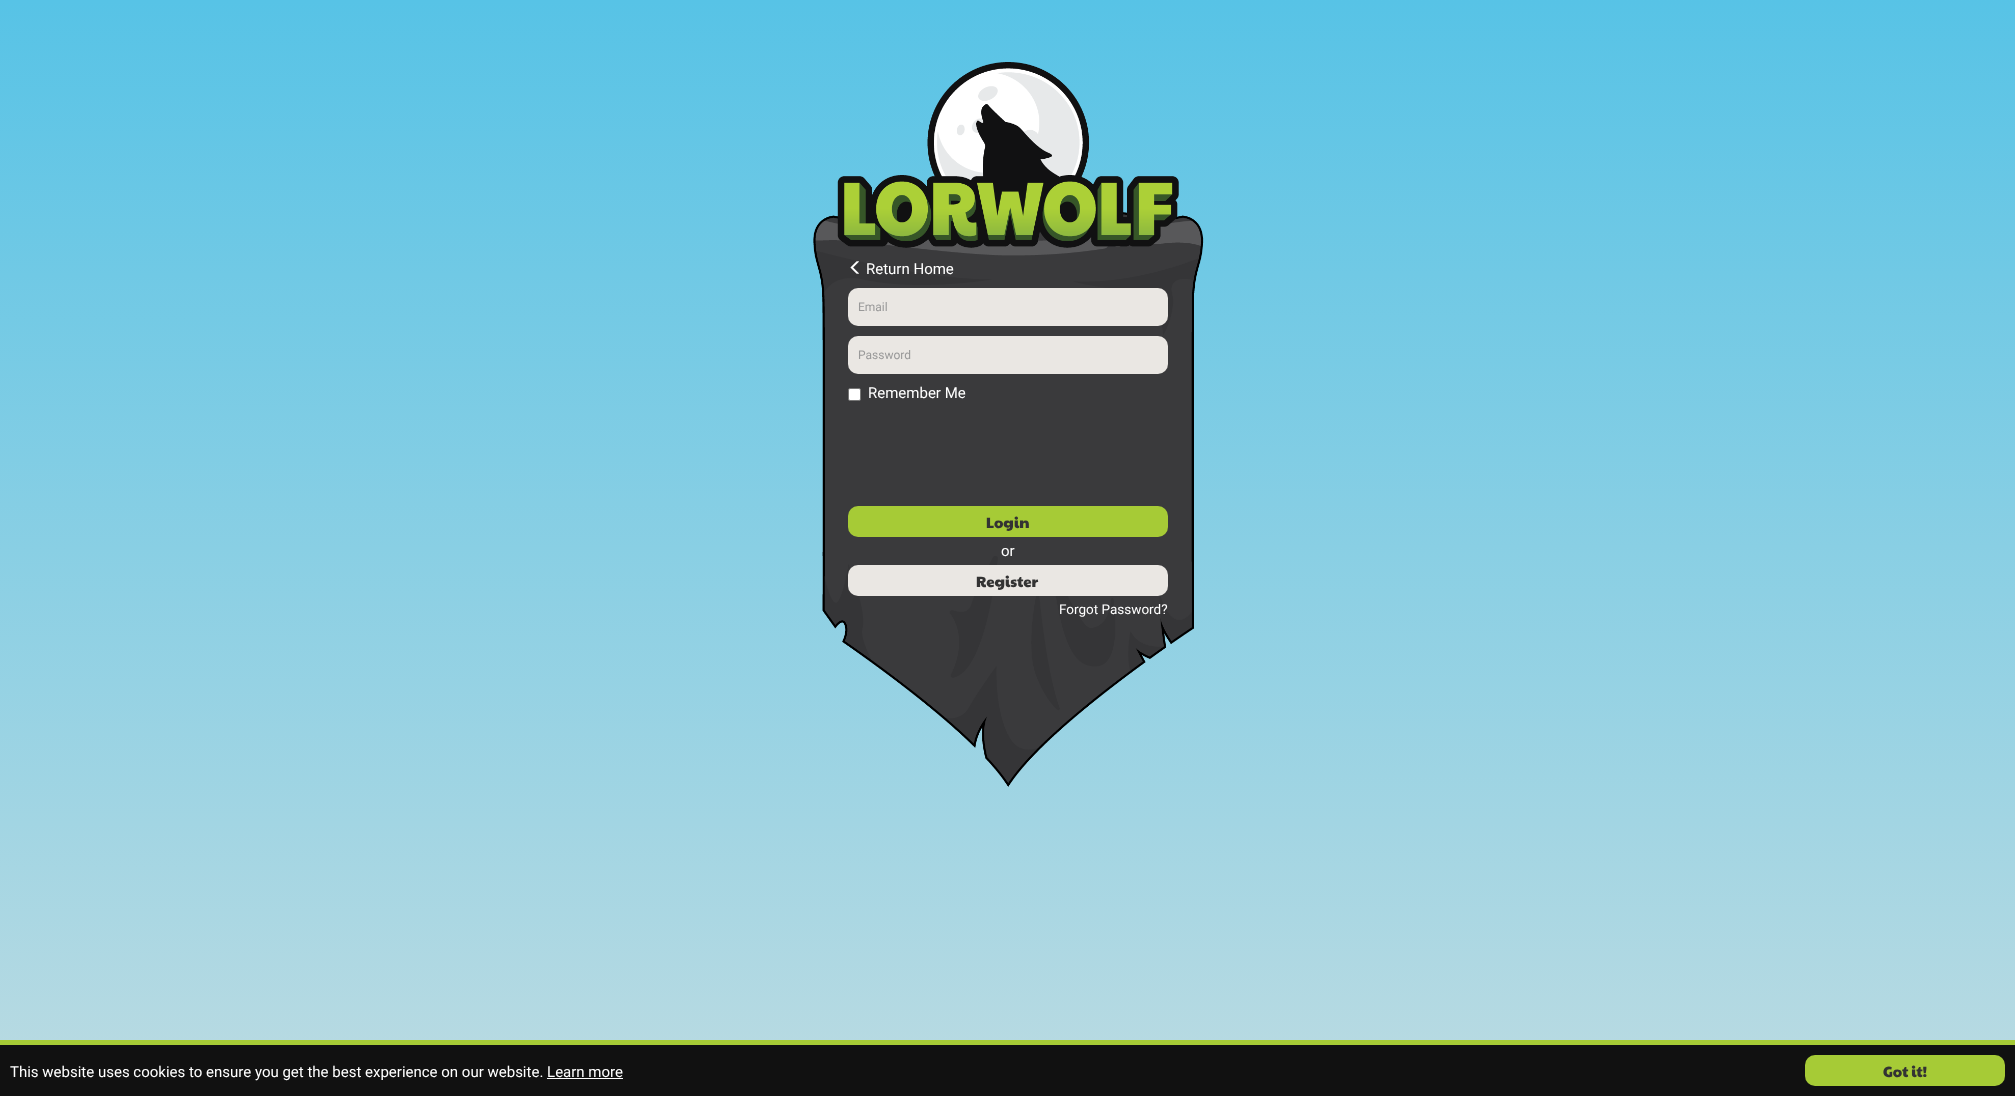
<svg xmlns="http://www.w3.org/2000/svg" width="2015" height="1096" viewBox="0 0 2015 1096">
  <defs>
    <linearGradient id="g1" gradientUnits="userSpaceOnUse" x1="1007" y1="0" x2="1008" y2="1096"><stop offset="0" stop-color="#57c3e6"/><stop offset="1" stop-color="#bbdbe2"/></linearGradient>
  </defs>
  <rect width="100%" height="100%" fill="#ffffff"/>
  <rect x="0" y="0" width="2015" height="1040" fill="url(#g1)"/>
  <image x="822" y="289" width="372" height="267" href="img2.png"/>
  <image x="813" y="62" width="391" height="278" href="img1.png"/>
  <image x="822" y="552" width="372" height="235" href="img3.png"/>
  <image x="850" y="261" width="9" height="13" href="img4.png"/>
  <text x="866" y="274" font-family="Roboto" font-size="15" fill="#ffffff">Return Home</text>
  <rect x="848" y="288" width="320" height="38" rx="10" fill="#eae7e3"/>
  <text x="858" y="311" font-family="Roboto" font-size="12" fill="#999999">Email</text>
  <rect x="848" y="336" width="320" height="38" rx="10" fill="#eae7e3"/>
  <text x="858" y="359" font-family="Roboto" font-size="12" fill="#999999">Password</text>
  <rect x="848.5" y="388.5" width="12" height="12" rx="1.5" fill="#ffffff" stroke="#767676"/>
  <text x="868" y="398" font-family="Roboto" font-size="15" fill="#ffffff">Remember Me</text>
  <rect x="848" y="506" width="320" height="31" rx="10" fill="#a6cb36"/>
  <text x="986" y="528" font-family="Paytone One" font-size="15" fill="#333333">Login</text>
  <text x="1001" y="556" font-family="Roboto" font-size="15" fill="#ffffff">or</text>
  <rect x="848" y="565" width="320" height="31" rx="10" fill="#eae7e3"/>
  <text x="976" y="587" font-family="Paytone One" font-size="15" fill="#333333">Register</text>
  <text x="1059" y="614" font-family="Roboto" font-size="13.5" fill="#ffffff">Forgot Password?</text>
  <rect x="0" y="1045" width="2015" height="51" fill="#111111"/>
  <rect x="0" y="1040" width="2015" height="5" fill="#a6cb36"/>
  <text x="10" y="1077" font-family="Roboto" font-size="15" fill="#ffffff">This website uses cookies to ensure you get the best experience on our website. Learn more</text>
  <rect x="547" y="1078" width="76" height="1" fill="#ffffff"/>
  <rect x="1805" y="1055" width="200" height="31" rx="10" fill="#a6cb36"/>
  <text x="1883" y="1077" font-family="Paytone One" font-size="15" fill="#333333">Got it!</text>
</svg>
